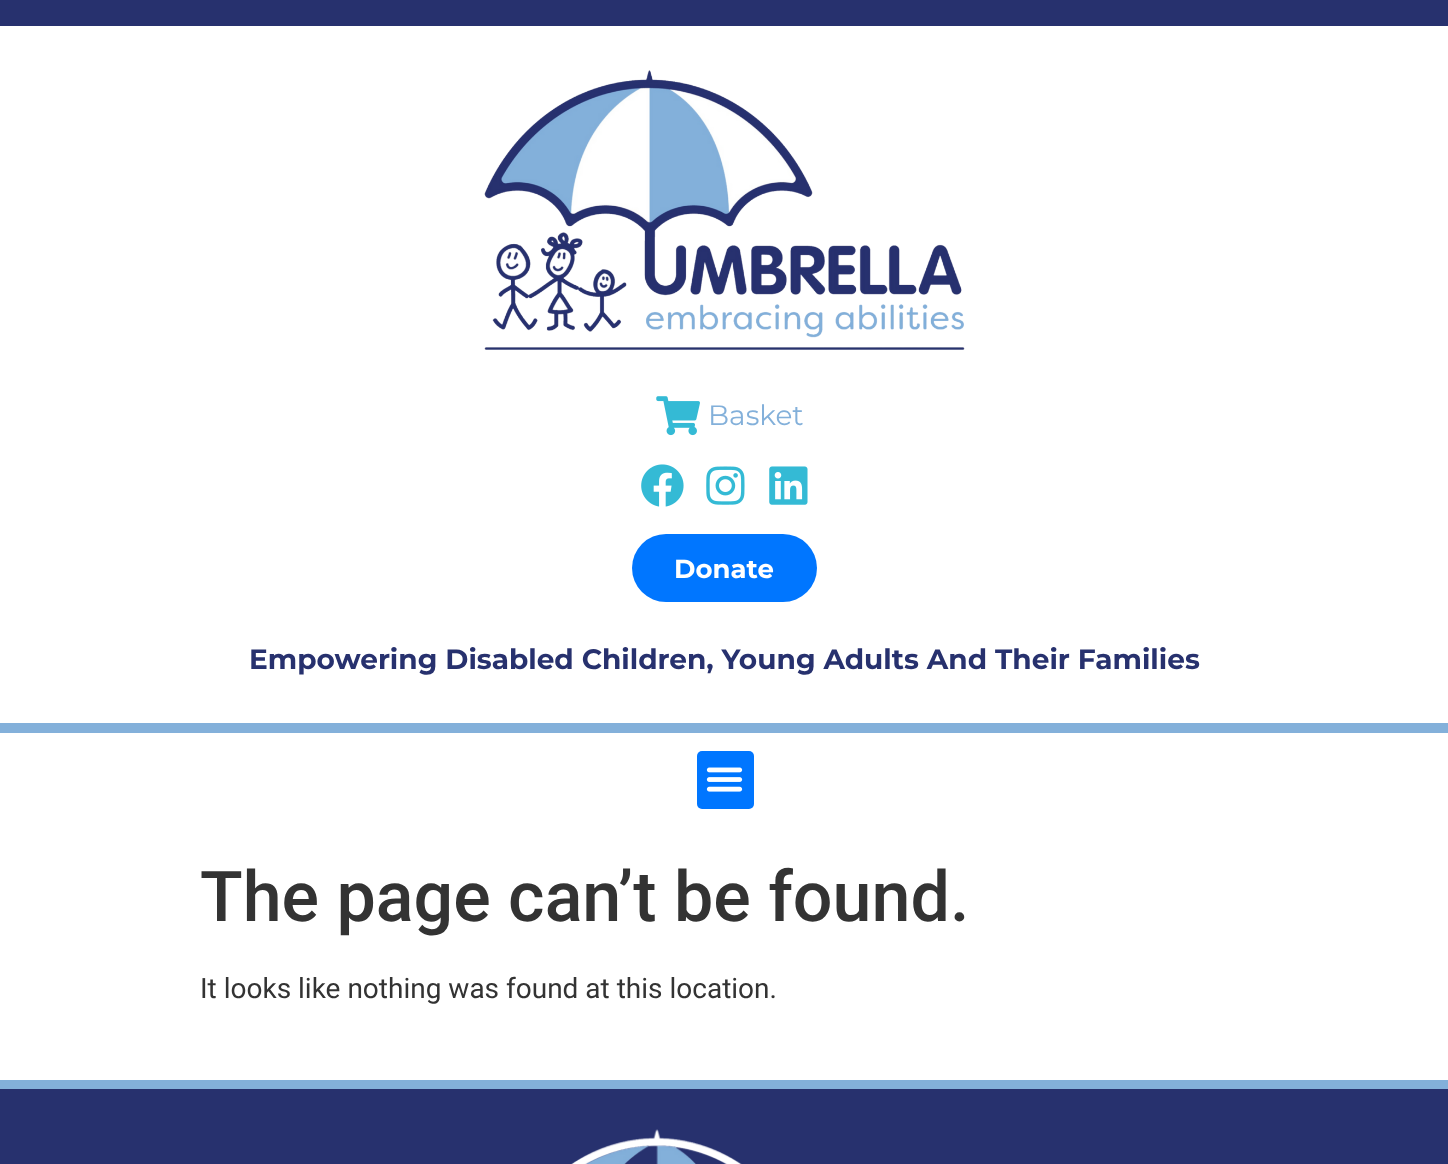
<svg xmlns="http://www.w3.org/2000/svg" width="1448" height="1164" viewBox="0 0 1448 1164">
  <rect width="100%" height="100%" fill="#ffffff"/>
  <rect x="0" y="0" width="1448" height="26" fill="#27316e"/>
  <image x="484" y="70" width="481" height="280" href="img1.png"/>
  <image x="656" y="396" width="44" height="40" href="img2.png"/>
  <text x="708" y="425" font-family="Montserrat" font-size="28" fill="#83b0da">Basket</text>
  <image x="641" y="464" width="43" height="43" href="img3.png"/>
  <image x="706" y="466" width="39" height="39" href="img4.png"/>
  <image x="769" y="466" width="39" height="39" href="img5.png"/>
  <rect x="632" y="534" width="185" height="68" rx="34" fill="#0076ff"/>
  <text x="674" y="578" font-family="Montserrat" font-size="26" font-weight="bold" fill="#ffffff">Donate</text>
  <text x="249" y="669" font-family="Montserrat" font-size="28" font-weight="bold" fill="#27316e">Empowering Disabled Children, Young Adults And Their Families</text>
  <rect x="0" y="723" width="1448" height="10" fill="#83b0da"/>
  <rect x="697" y="751" width="57" height="58" rx="5" fill="#0076ff"/>
  <image x="706" y="767" width="37" height="25" href="img6.png"/>
  <text x="200" y="921" font-family="Roboto" font-size="70" font-weight="500" fill="#333333">The page can’t be found.</text>
  <text x="200" y="998" font-family="Roboto" font-size="28" fill="#333333">It looks like nothing was found at this location.</text>
  <rect x="0" y="1089" width="1448" height="75" fill="#27316e"/>
  <rect x="0" y="1080" width="1448" height="9" fill="#83b0da"/>
  <image x="571" y="1129" width="171" height="35" href="img7.png"/>
</svg>
